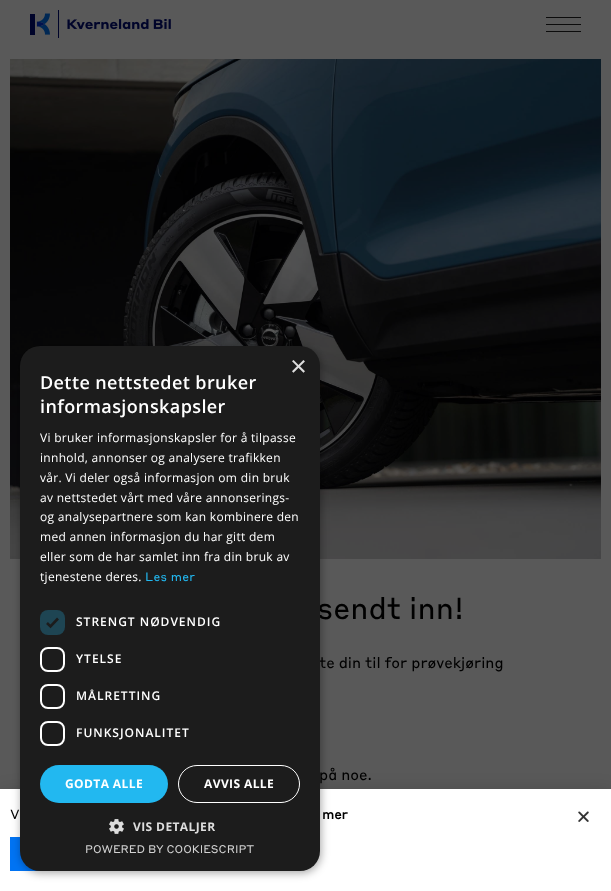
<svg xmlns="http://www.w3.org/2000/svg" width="611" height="891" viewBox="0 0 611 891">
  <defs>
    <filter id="blur1" x="-50%" y="-200%" width="200%" height="500%"><feGaussianBlur stdDeviation="11.5"/></filter>
    <filter id="blur2" x="-50%" y="-200%" width="200%" height="500%"><feGaussianBlur stdDeviation="4"/></filter>
  </defs>
  <rect width="100%" height="100%" fill="#595959"/>
  <image x="10" y="59" width="591" height="500" href="img3.png"/>
  <rect x="-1" y="794" width="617" height="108" fill="#000000" fill-opacity="0.2" filter="url(#blur1)"/>
  <rect x="0" y="789" width="611" height="102" fill="#ffffff"/>
  <rect x="10" y="837" width="30" height="34" fill="#0073f3"/>
  <rect x="21" y="348" width="300" height="525" rx="20" fill="#000000" fill-opacity="0.35" filter="url(#blur2)"/>
  <text x="317" y="619" font-family="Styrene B" font-size="30" fill="#000000">sendt inn!</text>
  <text x="319" y="668" font-family="Styrene B" font-size="15" fill="#000000">te din til for prøvekjøring</text>
  <text x="319" y="780" font-family="Styrene B" font-size="15" fill="#000000">på noe.</text>
  <rect x="20" y="346" width="300" height="525" rx="20" fill="#1c1c1c"/>
  <text x="290" y="376" font-family="Liberation Sans" font-size="29" fill="#dddddd">×</text>
  <text x="40" y="389" font-family="Open Sans" font-size="18" font-weight="600" letter-spacing="0.4" fill="#ffffff">Dette nettstedet bruker</text>
  <text x="40" y="413" font-family="Open Sans" font-size="18" font-weight="600" letter-spacing="0.4" fill="#ffffff">informasjonskapsler</text>
  <text x="40" y="442" font-family="Open Sans" font-size="12" letter-spacing="0.3" fill="#ffffff">Vi bruker informasjonskapsler for å tilpasse</text>
  <text x="40" y="462" font-family="Open Sans" font-size="12" letter-spacing="0.3" fill="#ffffff">innhold, annonser og analysere trafikken</text>
  <text x="40" y="482" font-family="Open Sans" font-size="12" letter-spacing="0.3" fill="#ffffff">vår. Vi deler også informasjon om din bruk</text>
  <text x="40" y="502" font-family="Open Sans" font-size="12" letter-spacing="0.3" fill="#ffffff">av nettstedet vårt med våre annonserings-</text>
  <text x="40" y="521" font-family="Open Sans" font-size="12" letter-spacing="0.3" fill="#ffffff">og analysepartnere som kan kombinere den</text>
  <text x="40" y="541" font-family="Open Sans" font-size="12" letter-spacing="0.3" fill="#ffffff">med annen informasjon du har gitt dem</text>
  <text x="40" y="561" font-family="Open Sans" font-size="12" letter-spacing="0.3" fill="#ffffff">eller som de har samlet inn fra din bruk av</text>
  <text x="40" y="581" font-family="Open Sans" font-size="12" letter-spacing="0.3" fill="#ffffff">tjenestene deres.</text>
  <text x="145" y="581" font-family="Styrene B" font-size="12" letter-spacing="0.3" fill="#22b8f0">Les mer</text>
  <rect x="40" y="610" width="25" height="25" rx="8" fill="#1e4553"/>
  <path d="M47 623L50.5 626.5L58 618.5" fill="none" stroke="#1c1c1c" stroke-width="2.6"/>
  <text x="76" y="626" font-family="Open Sans" font-size="12" font-weight="600" letter-spacing="1" fill="#ffffff">STRENGT NØDVENDIG</text>
  <rect x="41" y="648" width="23" height="23" rx="7" fill="none" stroke="#ffffff" stroke-width="2"/>
  <text x="76" y="663" font-family="Open Sans" font-size="12" font-weight="600" letter-spacing="1" fill="#ffffff">YTELSE</text>
  <rect x="41" y="685" width="23" height="23" rx="7" fill="none" stroke="#ffffff" stroke-width="2"/>
  <text x="76" y="700" font-family="Open Sans" font-size="12" font-weight="600" letter-spacing="1" fill="#ffffff">MÅLRETTING</text>
  <rect x="41" y="722" width="23" height="23" rx="7" fill="none" stroke="#ffffff" stroke-width="2"/>
  <text x="76" y="737" font-family="Open Sans" font-size="12" font-weight="600" letter-spacing="1" fill="#ffffff">FUNKSJONALITET</text>
  <rect x="40" y="765" width="128" height="38" rx="19" fill="#22b8f0"/>
  <text x="65" y="788" font-family="Open Sans" font-size="12" font-weight="bold" letter-spacing="0.4" fill="#ffffff">GODTA ALLE</text>
  <rect x="178.5" y="765.5" width="121" height="37" rx="18.5" fill="none" stroke="#ffffff"/>
  <text x="204" y="788" font-family="Open Sans" font-size="12" font-weight="bold" letter-spacing="0.4" fill="#ffffff">AVVIS ALLE</text>
  <image x="109" y="819" width="15" height="15" href="img1.png"/>
  <text x="133" y="831" font-family="Open Sans" font-size="12" font-weight="bold" letter-spacing="0.4" fill="#dddddd">VIS DETALJER</text>
  <text x="85" y="853" font-family="Styrene B" font-size="11" fill="#d2d2d2">POWERED BY COOKIESCRIPT</text>
  <image x="30" y="10" width="141" height="28" href="img2.png"/>
  <rect x="546" y="17" width="35" height="1" fill="#0c0c0c"/>
  <rect x="546" y="24" width="35" height="1" fill="#0c0c0c"/>
  <rect x="546" y="31" width="35" height="1" fill="#0c0c0c"/>
  <text x="10" y="819" font-family="Styrene B" font-size="13" fill="#000000">V</text>
  <text x="322" y="819" font-family="Styrene B" font-size="13" font-weight="bold" fill="#000000">mer</text>
  <image x="578" y="811" width="11" height="11" href="img4.png"/>
</svg>
